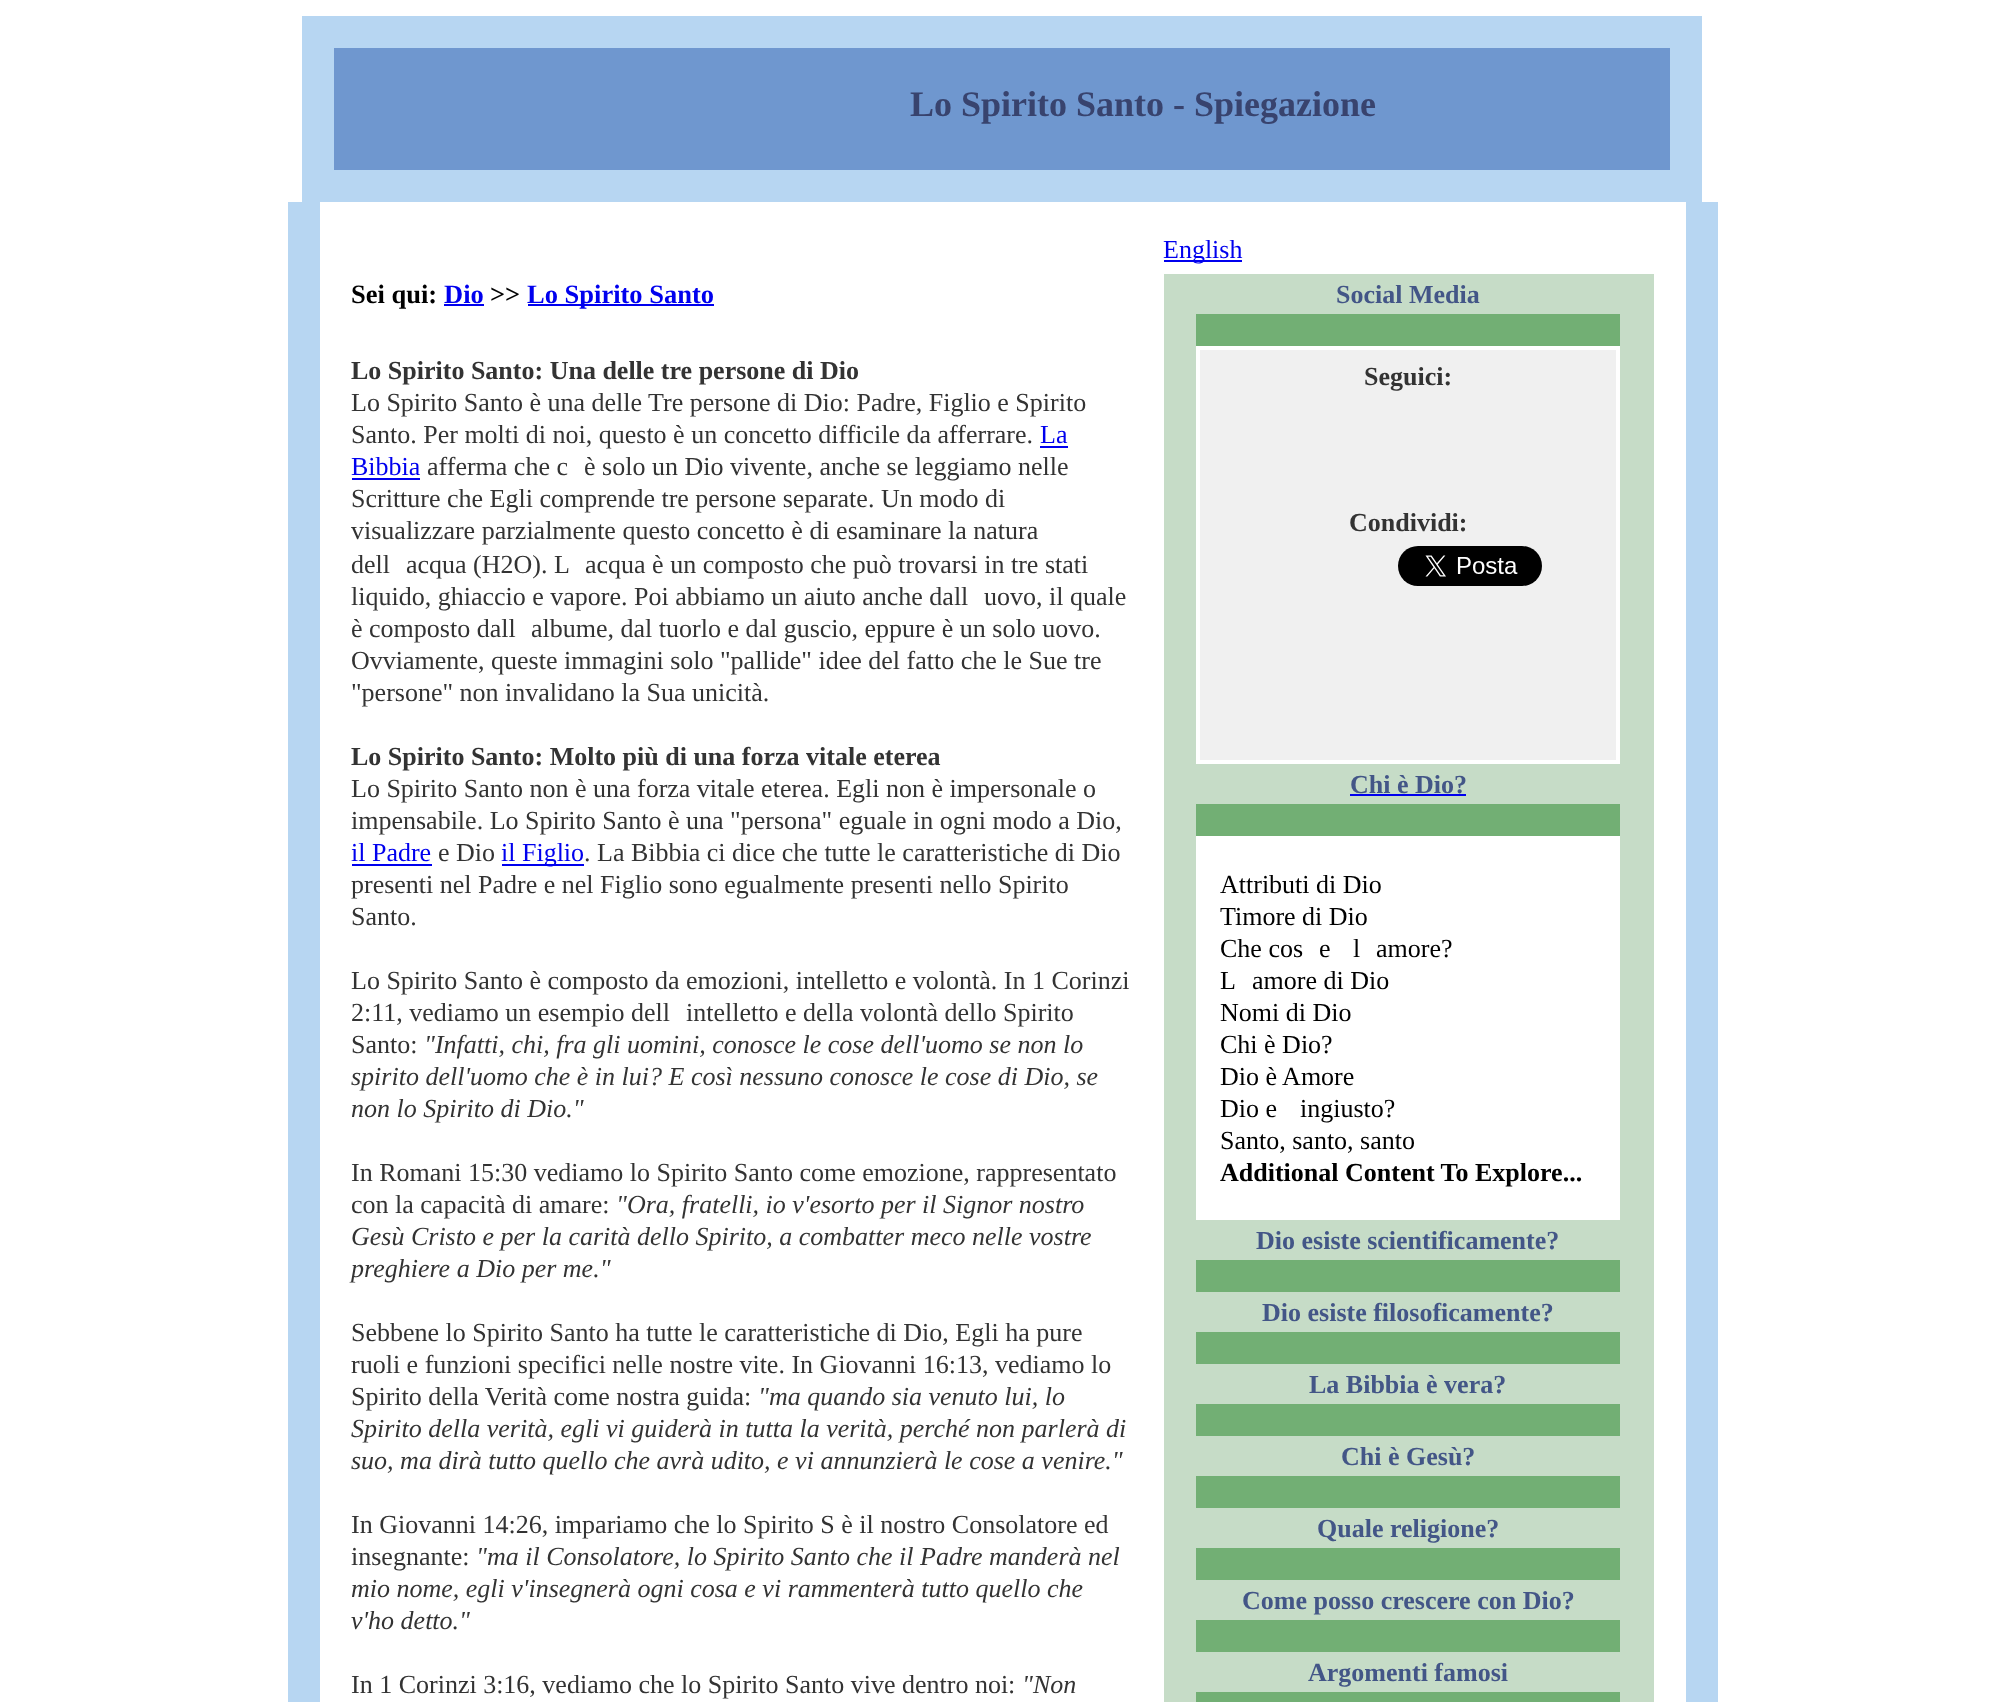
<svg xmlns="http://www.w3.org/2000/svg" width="2003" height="1702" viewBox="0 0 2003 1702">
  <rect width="100%" height="100%" fill="#ffffff"/>
  <rect x="302" y="16" width="1400" height="32" fill="#b7d6f2"/>
  <rect x="302" y="48" width="32" height="122" fill="#b7d6f2"/>
  <rect x="334" y="48" width="1336" height="122" fill="#6f97cf"/>
  <rect x="1670" y="48" width="32" height="122" fill="#b7d6f2"/>
  <text x="910" y="116" font-family="Liberation Serif" font-size="36" font-weight="bold" fill="#38436e">Lo Spirito Santo - Spiegazione</text>
  <rect x="302" y="170" width="1400" height="32" fill="#b7d6f2"/>
  <rect x="288" y="202" width="32" height="1500" fill="#b7d6f2"/>
  <rect x="1686" y="202" width="32" height="1500" fill="#b7d6f2"/>
  <text x="351" y="303" font-family="Liberation Serif" font-size="26.5" font-weight="bold" fill="#000000">Sei qui:</text>
  <text x="444" y="303" font-family="Liberation Serif" font-size="26.5" font-weight="bold" fill="#0000ee">Dio</text>
  <rect x="444" y="304" width="40" height="2" fill="#0000ee"/>
  <text x="490" y="303" font-family="Liberation Serif" font-size="26.5" font-weight="bold" fill="#000000">&gt;&gt;</text>
  <rect x="528" y="304" width="186" height="2" fill="#0000ee"/>
  <text x="527" y="303" font-family="Liberation Serif" font-size="26.5" font-weight="bold" fill="#0000ee">Lo Spirito Santo</text>
  <text x="351" y="379" font-family="Liberation Serif" font-size="26" font-weight="bold" fill="#333333">Lo Spirito Santo: Una delle tre persone di Dio</text>
  <text x="351" y="411" font-family="Liberation Serif" font-size="26" fill="#333333">Lo Spirito Santo è una delle Tre persone di Dio: Padre, Figlio e Spirito</text>
  <text x="351" y="443" font-family="Liberation Serif" font-size="26" fill="#333333">Santo. Per molti di noi, questo è un concetto difficile da afferrare.</text>
  <text x="1040" y="443" font-family="Liberation Serif" font-size="26" fill="#0000ee">La</text>
  <rect x="1040" y="446" width="28" height="2" fill="#0000ee"/>
  <text x="351" y="475" font-family="Liberation Serif" font-size="26" fill="#0000ee">Bibbia</text>
  <rect x="352" y="478" width="68" height="2" fill="#0000ee"/>
  <text x="427" y="475" font-family="Liberation Serif" font-size="26" fill="#333333">afferma che c</text>
  <text x="584" y="475" font-family="Liberation Serif" font-size="26" fill="#333333">è solo un Dio vivente, anche se leggiamo nelle</text>
  <text x="351" y="507" font-family="Liberation Serif" font-size="26" fill="#333333">Scritture che Egli comprende tre persone separate. Un modo di</text>
  <text x="351" y="539" font-family="Liberation Serif" font-size="26" fill="#333333">visualizzare parzialmente questo concetto è di esaminare la natura</text>
  <text x="351" y="573" font-family="Liberation Serif" font-size="26" fill="#333333">dell</text>
  <text x="406" y="573" font-family="Liberation Serif" font-size="26" fill="#333333">acqua (H2O). L</text>
  <text x="585" y="573" font-family="Liberation Serif" font-size="26" fill="#333333">acqua è un composto che può trovarsi in tre stati</text>
  <text x="351" y="605" font-family="Liberation Serif" font-size="26" fill="#333333">liquido, ghiaccio e vapore. Poi abbiamo un aiuto anche dall</text>
  <text x="984" y="605" font-family="Liberation Serif" font-size="26" fill="#333333">uovo, il quale</text>
  <text x="351" y="637" font-family="Liberation Serif" font-size="26" fill="#333333">è composto dall</text>
  <text x="531" y="637" font-family="Liberation Serif" font-size="26" fill="#333333">albume, dal tuorlo e dal guscio, eppure è un solo uovo.</text>
  <text x="351" y="669" font-family="Liberation Serif" font-size="26" fill="#333333">Ovviamente, queste immagini solo "pallide" idee del fatto che le Sue tre</text>
  <text x="351" y="701" font-family="Liberation Serif" font-size="26" fill="#333333">"persone" non invalidano la Sua unicità.</text>
  <text x="351" y="765" font-family="Liberation Serif" font-size="26" font-weight="bold" fill="#333333">Lo Spirito Santo: Molto più di una forza vitale eterea</text>
  <text x="351" y="797" font-family="Liberation Serif" font-size="26" fill="#333333">Lo Spirito Santo non è una forza vitale eterea. Egli non è impersonale o</text>
  <text x="351" y="829" font-family="Liberation Serif" font-size="26" fill="#333333">impensabile. Lo Spirito Santo è una "persona" eguale in ogni modo a Dio,</text>
  <text x="351" y="861" font-family="Liberation Serif" font-size="26" fill="#0000ee">il Padre</text>
  <rect x="352" y="864" width="80" height="2" fill="#0000ee"/>
  <text x="438" y="861" font-family="Liberation Serif" font-size="26" fill="#333333">e Dio</text>
  <rect x="502" y="864" width="82" height="2" fill="#0000ee"/>
  <text x="501" y="861" font-family="Liberation Serif" font-size="26" fill="#0000ee">il Figlio</text>
  <text x="584" y="861" font-family="Liberation Serif" font-size="26" fill="#333333">. La Bibbia ci dice che tutte le caratteristiche di Dio</text>
  <text x="351" y="893" font-family="Liberation Serif" font-size="26" fill="#333333">presenti nel Padre e nel Figlio sono egualmente presenti nello Spirito</text>
  <text x="351" y="925" font-family="Liberation Serif" font-size="26" fill="#333333">Santo.</text>
  <text x="351" y="989" font-family="Liberation Serif" font-size="26" fill="#333333">Lo Spirito Santo è composto da emozioni, intelletto e volontà. In 1 Corinzi</text>
  <text x="351" y="1021" font-family="Liberation Serif" font-size="26" fill="#333333">2:11, vediamo un esempio dell</text>
  <text x="686" y="1021" font-family="Liberation Serif" font-size="26" fill="#333333">intelletto e della volontà dello Spirito</text>
  <text x="351" y="1053" font-family="Liberation Serif" font-size="26" fill="#333333">Santo:</text>
  <text x="424" y="1053" font-family="Liberation Serif" font-size="26" font-style="italic" fill="#333333">"Infatti, chi, fra gli uomini, conosce le cose dell'uomo se non lo</text>
  <text x="351" y="1085" font-family="Liberation Serif" font-size="26" font-style="italic" fill="#333333">spirito dell'uomo che è in lui? E così nessuno conosce le cose di Dio, se</text>
  <text x="351" y="1117" font-family="Liberation Serif" font-size="26" font-style="italic" fill="#333333">non lo Spirito di Dio."</text>
  <text x="351" y="1181" font-family="Liberation Serif" font-size="26" fill="#333333">In Romani 15:30 vediamo lo Spirito Santo come emozione, rappresentato</text>
  <text x="351" y="1213" font-family="Liberation Serif" font-size="26" fill="#333333">con la capacità di amare:</text>
  <text x="616" y="1213" font-family="Liberation Serif" font-size="26" font-style="italic" fill="#333333">"Ora, fratelli, io v'esorto per il Signor nostro</text>
  <text x="351" y="1245" font-family="Liberation Serif" font-size="26" font-style="italic" fill="#333333">Gesù Cristo e per la carità dello Spirito, a combatter meco nelle vostre</text>
  <text x="351" y="1277" font-family="Liberation Serif" font-size="26" font-style="italic" fill="#333333">preghiere a Dio per me."</text>
  <text x="351" y="1341" font-family="Liberation Serif" font-size="26" fill="#333333">Sebbene lo Spirito Santo ha tutte le caratteristiche di Dio, Egli ha pure</text>
  <text x="351" y="1373" font-family="Liberation Serif" font-size="26" fill="#333333">ruoli e funzioni specifici nelle nostre vite. In Giovanni 16:13, vediamo lo</text>
  <text x="351" y="1405" font-family="Liberation Serif" font-size="26" fill="#333333">Spirito della Verità come nostra guida:</text>
  <text x="758" y="1405" font-family="Liberation Serif" font-size="26" font-style="italic" fill="#333333">"ma quando sia venuto lui, lo</text>
  <text x="351" y="1437" font-family="Liberation Serif" font-size="26" font-style="italic" fill="#333333">Spirito della verità, egli vi guiderà in tutta la verità, perché non parlerà di</text>
  <text x="351" y="1469" font-family="Liberation Serif" font-size="26" font-style="italic" fill="#333333">suo, ma dirà tutto quello che avrà udito, e vi annunzierà le cose a venire."</text>
  <text x="351" y="1533" font-family="Liberation Serif" font-size="26" fill="#333333">In Giovanni 14:26, impariamo che lo Spirito S è il nostro Consolatore ed</text>
  <text x="351" y="1565" font-family="Liberation Serif" font-size="26" fill="#333333">insegnante:</text>
  <text x="476" y="1565" font-family="Liberation Serif" font-size="26" font-style="italic" fill="#333333">"ma il Consolatore, lo Spirito Santo che il Padre manderà nel</text>
  <text x="351" y="1597" font-family="Liberation Serif" font-size="26" font-style="italic" fill="#333333">mio nome, egli v'insegnerà ogni cosa e vi rammenterà tutto quello che</text>
  <text x="351" y="1629" font-family="Liberation Serif" font-size="26" font-style="italic" fill="#333333">v'ho detto."</text>
  <text x="351" y="1693" font-family="Liberation Serif" font-size="26" fill="#333333">In 1 Corinzi 3:16, vediamo che lo Spirito Santo vive dentro noi:</text>
  <text x="1022" y="1693" font-family="Liberation Serif" font-size="26" font-style="italic" fill="#333333">"Non</text>
  <rect x="1164" y="260" width="78" height="2" fill="#0000ee"/>
  <text x="1163" y="258" font-family="Liberation Serif" font-size="26" fill="#0000ee">English</text>
  <rect x="1164" y="274" width="490" height="40" fill="#c6dcc7"/>
  <text x="1336" y="303" font-family="Liberation Serif" font-size="26" font-weight="bold" fill="#435687">Social Media</text>
  <rect x="1164" y="314" width="32" height="450" fill="#c6dcc7"/>
  <rect x="1196" y="314" width="424" height="32" fill="#72af74"/>
  <rect x="1620" y="314" width="34" height="450" fill="#c6dcc7"/>
  <rect x="1200" y="350" width="416" height="410" fill="#f0f0f0"/>
  <text x="1364" y="385" font-family="Liberation Serif" font-size="26" font-weight="bold" fill="#333333">Seguici:</text>
  <text x="1349" y="531" font-family="Liberation Serif" font-size="26" font-weight="bold" fill="#333333">Condividi:</text>
  <image x="1398" y="546" width="144" height="40" href="img1.png"/>
  <rect x="1164" y="764" width="490" height="40" fill="#c6dcc7"/>
  <text x="1350" y="793" font-family="Liberation Serif" font-size="26" font-weight="bold" fill="#435687">Chi è Dio?</text>
  <rect x="1350" y="794" width="116" height="2" fill="#0000ee"/>
  <rect x="1164" y="804" width="32" height="416" fill="#c6dcc7"/>
  <rect x="1196" y="804" width="424" height="32" fill="#72af74"/>
  <rect x="1620" y="804" width="34" height="416" fill="#c6dcc7"/>
  <text x="1220" y="893" font-family="Liberation Serif" font-size="26" fill="#000000">Attributi di Dio</text>
  <text x="1220" y="925" font-family="Liberation Serif" font-size="26" fill="#000000">Timore di Dio</text>
  <text x="1220" y="957" font-family="Liberation Serif" font-size="26" fill="#000000">Che cos</text>
  <text x="1319" y="957" font-family="Liberation Serif" font-size="26" fill="#000000">e</text>
  <text x="1353" y="957" font-family="Liberation Serif" font-size="26" fill="#000000">l</text>
  <text x="1376" y="957" font-family="Liberation Serif" font-size="26" fill="#000000">amore?</text>
  <text x="1220" y="989" font-family="Liberation Serif" font-size="26" fill="#000000">L</text>
  <text x="1252" y="989" font-family="Liberation Serif" font-size="26" fill="#000000">amore di Dio</text>
  <text x="1220" y="1021" font-family="Liberation Serif" font-size="26" fill="#000000">Nomi di Dio</text>
  <text x="1220" y="1053" font-family="Liberation Serif" font-size="26" fill="#000000">Chi è Dio?</text>
  <text x="1220" y="1085" font-family="Liberation Serif" font-size="26" fill="#000000">Dio è Amore</text>
  <text x="1220" y="1117" font-family="Liberation Serif" font-size="26" fill="#000000">Dio e</text>
  <text x="1300" y="1117" font-family="Liberation Serif" font-size="26" fill="#000000">ingiusto?</text>
  <text x="1220" y="1149" font-family="Liberation Serif" font-size="26" fill="#000000">Santo, santo, santo</text>
  <text x="1220" y="1181" font-family="Liberation Serif" font-size="26" font-weight="bold" fill="#000000">Additional Content To Explore...</text>
  <rect x="1164" y="1220" width="490" height="40" fill="#c6dcc7"/>
  <text x="1256" y="1249" font-family="Liberation Serif" font-size="26" font-weight="bold" fill="#435687">Dio esiste scientificamente?</text>
  <rect x="1164" y="1260" width="32" height="32" fill="#c6dcc7"/>
  <rect x="1196" y="1260" width="424" height="32" fill="#72af74"/>
  <rect x="1620" y="1260" width="34" height="32" fill="#c6dcc7"/>
  <rect x="1164" y="1292" width="490" height="40" fill="#c6dcc7"/>
  <text x="1262" y="1321" font-family="Liberation Serif" font-size="26" font-weight="bold" fill="#435687">Dio esiste filosoficamente?</text>
  <rect x="1164" y="1332" width="32" height="32" fill="#c6dcc7"/>
  <rect x="1196" y="1332" width="424" height="32" fill="#72af74"/>
  <rect x="1620" y="1332" width="34" height="32" fill="#c6dcc7"/>
  <rect x="1164" y="1364" width="490" height="40" fill="#c6dcc7"/>
  <text x="1309" y="1393" font-family="Liberation Serif" font-size="26" font-weight="bold" fill="#435687">La Bibbia è vera?</text>
  <rect x="1164" y="1404" width="32" height="32" fill="#c6dcc7"/>
  <rect x="1196" y="1404" width="424" height="32" fill="#72af74"/>
  <rect x="1620" y="1404" width="34" height="32" fill="#c6dcc7"/>
  <rect x="1164" y="1436" width="490" height="40" fill="#c6dcc7"/>
  <text x="1341" y="1465" font-family="Liberation Serif" font-size="26" font-weight="bold" fill="#435687">Chi è Gesù?</text>
  <rect x="1164" y="1476" width="32" height="32" fill="#c6dcc7"/>
  <rect x="1196" y="1476" width="424" height="32" fill="#72af74"/>
  <rect x="1620" y="1476" width="34" height="32" fill="#c6dcc7"/>
  <rect x="1164" y="1508" width="490" height="40" fill="#c6dcc7"/>
  <text x="1317" y="1537" font-family="Liberation Serif" font-size="26" font-weight="bold" fill="#435687">Quale religione?</text>
  <rect x="1164" y="1548" width="32" height="32" fill="#c6dcc7"/>
  <rect x="1196" y="1548" width="424" height="32" fill="#72af74"/>
  <rect x="1620" y="1548" width="34" height="32" fill="#c6dcc7"/>
  <rect x="1164" y="1580" width="490" height="40" fill="#c6dcc7"/>
  <text x="1242" y="1609" font-family="Liberation Serif" font-size="26" font-weight="bold" fill="#435687">Come posso crescere con Dio?</text>
  <rect x="1164" y="1620" width="32" height="32" fill="#c6dcc7"/>
  <rect x="1196" y="1620" width="424" height="32" fill="#72af74"/>
  <rect x="1620" y="1620" width="34" height="32" fill="#c6dcc7"/>
  <rect x="1164" y="1652" width="490" height="40" fill="#c6dcc7"/>
  <text x="1308" y="1681" font-family="Liberation Serif" font-size="26" font-weight="bold" fill="#435687">Argomenti famosi</text>
  <rect x="1164" y="1692" width="32" height="10" fill="#c6dcc7"/>
  <rect x="1196" y="1692" width="424" height="10" fill="#72af74"/>
  <rect x="1620" y="1692" width="34" height="10" fill="#c6dcc7"/>
</svg>
